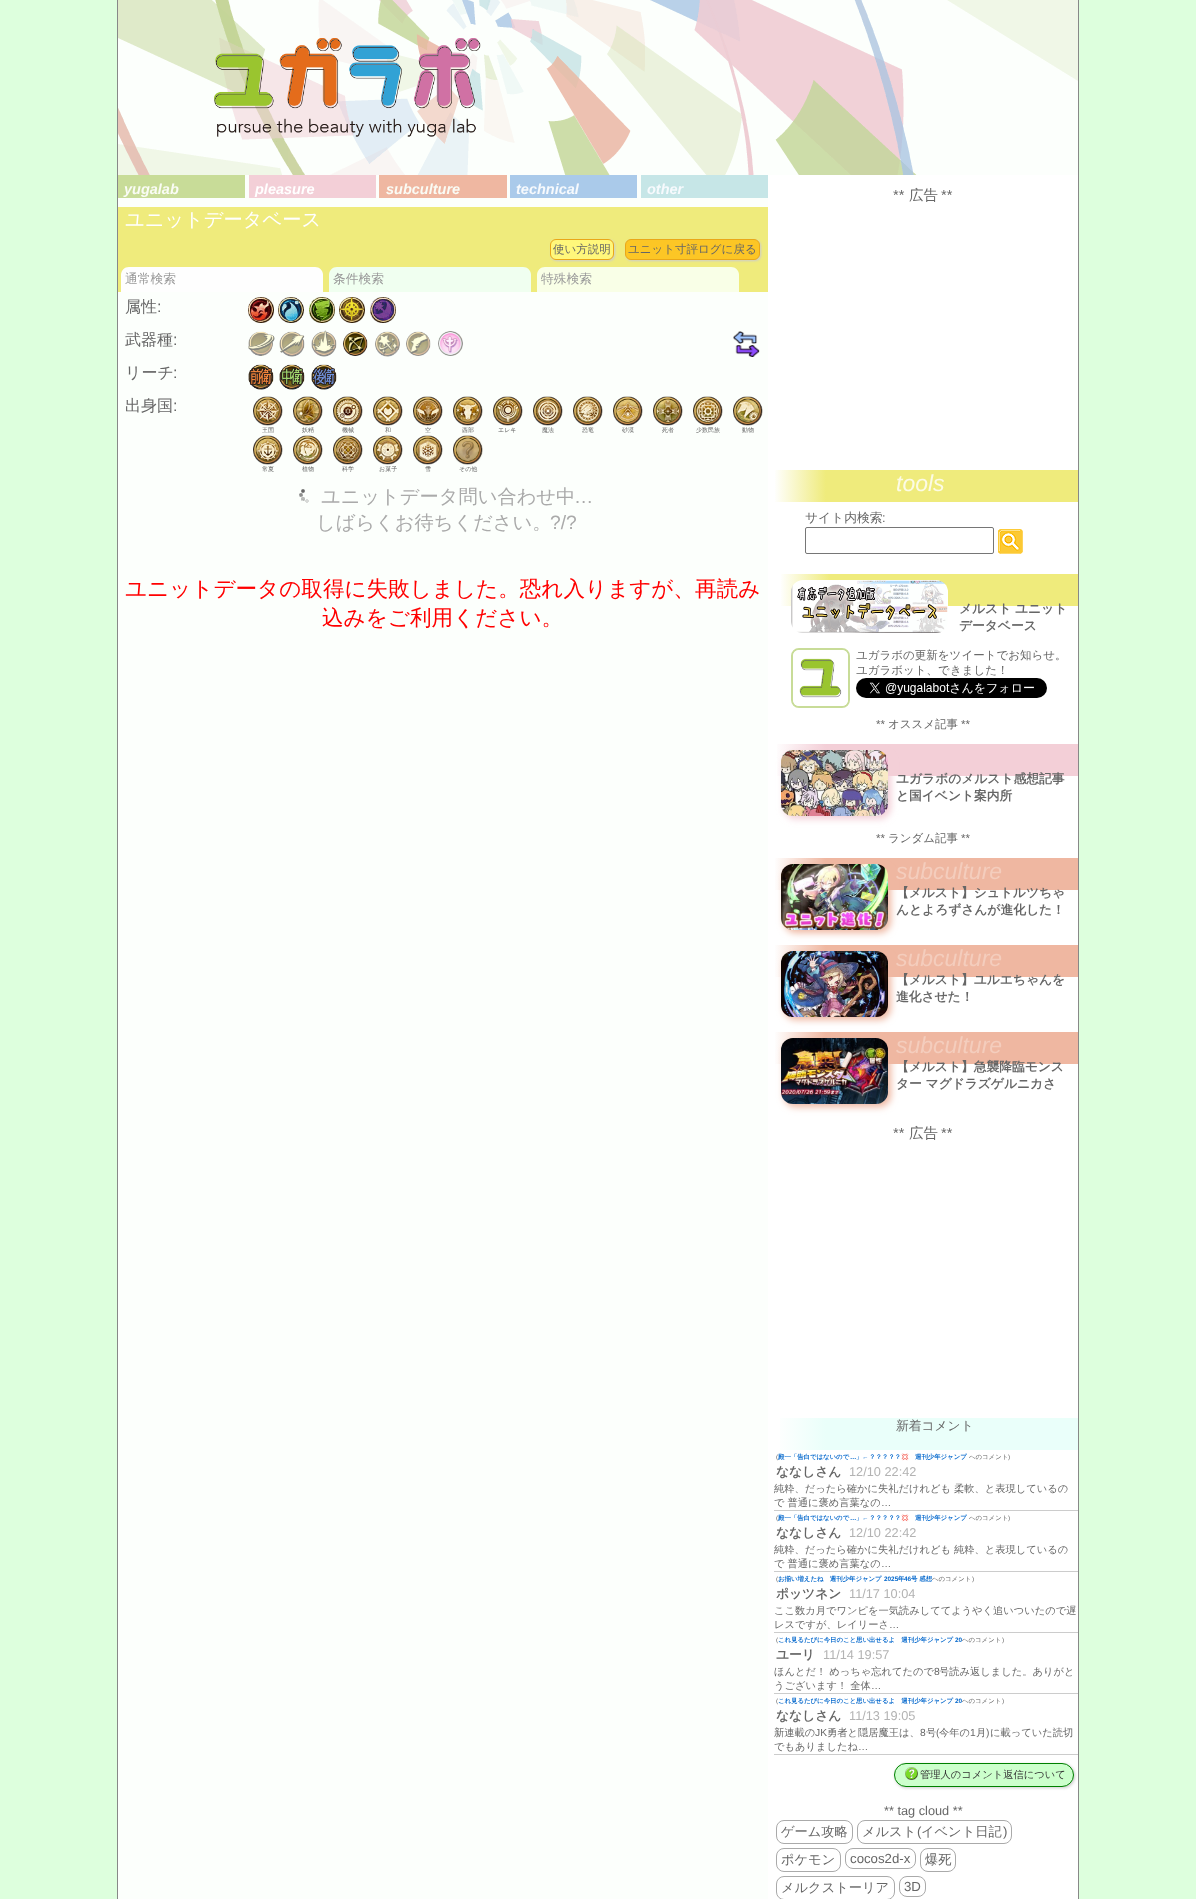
<svg xmlns="http://www.w3.org/2000/svg" width="1196" height="1899" viewBox="0 0 1196 1899">
  <defs>
    <filter id="blur1" x="-50%" y="-200%" width="200%" height="500%"><feGaussianBlur stdDeviation="1"/></filter>
    <linearGradient id="g1" gradientUnits="userSpaceOnUse" x1="774" y1="486" x2="1078" y2="486"><stop offset="0" stop-color="#ffffff"/><stop offset="0.17" stop-color="#efeb7c"/><stop offset="1" stop-color="#efeb7c"/></linearGradient>
    <linearGradient id="g2" gradientUnits="userSpaceOnUse" x1="780" y1="590" x2="1078" y2="590"><stop offset="0" stop-color="#ffffff"/><stop offset="0.17" stop-color="#efeb7c"/><stop offset="1" stop-color="#efeb7c"/></linearGradient>
    <linearGradient id="g3" gradientUnits="userSpaceOnUse" x1="774" y1="760" x2="1078" y2="760"><stop offset="0" stop-color="#ffffff"/><stop offset="0.17" stop-color="#f3cfd7"/><stop offset="1" stop-color="#f3cfd7"/></linearGradient>
    <filter id="blur2" x="-50%" y="-200%" width="200%" height="500%"><feGaussianBlur stdDeviation="3.5"/></filter>
    <linearGradient id="g4" gradientUnits="userSpaceOnUse" x1="774" y1="874" x2="1078" y2="874"><stop offset="0" stop-color="#ffffff"/><stop offset="0.17" stop-color="#efb7a1"/><stop offset="1" stop-color="#efb7a1"/></linearGradient>
    <linearGradient id="g5" gradientUnits="userSpaceOnUse" x1="774" y1="961" x2="1078" y2="961"><stop offset="0" stop-color="#ffffff"/><stop offset="0.17" stop-color="#efb7a1"/><stop offset="1" stop-color="#efb7a1"/></linearGradient>
    <linearGradient id="g6" gradientUnits="userSpaceOnUse" x1="774" y1="1048" x2="1078" y2="1048"><stop offset="0" stop-color="#ffffff"/><stop offset="0.17" stop-color="#efb7a1"/><stop offset="1" stop-color="#efb7a1"/></linearGradient>
    <linearGradient id="g7" gradientUnits="userSpaceOnUse" x1="774" y1="1434" x2="1078" y2="1434"><stop offset="0" stop-color="#ffffff"/><stop offset="0.17" stop-color="#eafffa"/><stop offset="1" stop-color="#eafffa"/></linearGradient>
    <filter id="blur3" x="-50%" y="-200%" width="200%" height="500%"><feGaussianBlur stdDeviation="1.5"/></filter>
  </defs>
  <rect width="100%" height="100%" fill="#ddffdd"/>
  <rect x="118" y="0" width="960" height="1899" fill="#fcfffc"/>
  <rect x="1078" y="0" width="1" height="1899" fill="#888888"/>
  <rect x="117" y="0" width="1" height="1899" fill="#888888"/>
  <image x="118" y="0" width="960" height="175" href="img1.png"/>
  <image x="214" y="38" width="267" height="99" href="img2.png"/>
  <rect x="118" y="175" width="127" height="23" fill="#c8dc98"/>
  <text x="124" y="194" font-family="Liberation Sans" font-size="14.5" font-weight="bold" font-style="italic" fill="#fafcf5">yugalab</text>
  <rect x="249" y="175" width="127" height="23" fill="#f3cfd7"/>
  <text x="255" y="194" font-family="Liberation Sans" font-size="14.5" font-weight="bold" font-style="italic" fill="#ffffff">pleasure</text>
  <rect x="379" y="175" width="128" height="23" fill="#efb7a1"/>
  <text x="386" y="194" font-family="Liberation Sans" font-size="14.5" font-weight="bold" font-style="italic" fill="#fafcf5">subculture</text>
  <rect x="510" y="175" width="127" height="23" fill="#aacaea"/>
  <text x="516" y="194" font-family="Liberation Sans" font-size="14.5" font-weight="bold" font-style="italic" fill="#f7fafd">technical</text>
  <rect x="641" y="175" width="127" height="23" fill="#c6e6e7"/>
  <text x="647" y="194" font-family="Liberation Sans" font-size="14.5" font-weight="bold" font-style="italic" fill="#f7fafd">other</text>
  <rect x="118" y="207" width="650" height="85" fill="#efeb7c"/>
  <text x="125" y="226" font-family="WenQuanYi Zen Hei" font-size="19.25" font-weight="500" fill="#ffffff">ユニットデータベース</text>
  <rect x="551" y="240" width="64" height="21" rx="6" fill="#cccccc" filter="url(#blur1)"/>
  <rect x="550.5" y="239.5" width="63" height="20" rx="5.5" fill="#fff77b" stroke="#eaa717"/>
  <text x="553" y="253" font-family="WenQuanYi Zen Hei" font-size="11.5" font-weight="500" fill="#666666">使い方説明</text>
  <rect x="626" y="240" width="135" height="21" rx="6" fill="#cccccc" filter="url(#blur1)"/>
  <rect x="625.5" y="239.5" width="134" height="20" rx="5.5" fill="#fcc625" stroke="#eaa717"/>
  <text x="628" y="253" font-family="WenQuanYi Zen Hei" font-size="11.5" font-weight="500" fill="#666666">ユニット寸評ログに戻る</text>
  <path d="M129 267H315C319.5 267 323 270.5 323 275V292H121V275C121 270.5 124.5 267 129 267Z" fill="#fefefe"/>
  <text x="125" y="283" font-family="WenQuanYi Zen Hei" font-size="12.75" font-weight="500" fill="#999999">通常検索</text>
  <path d="M337 267H523C527.5 267 531 270.5 531 275V292H329V275C329 270.5 332.5 267 337 267Z" fill="#f0fff0"/>
  <text x="333" y="283" font-family="WenQuanYi Zen Hei" font-size="12.75" font-weight="500" fill="#999999">条件検索</text>
  <path d="M545 267H731C735.5 267 739 270.5 739 275V292H537V275C537 270.5 540.5 267 545 267Z" fill="#f9ffe7"/>
  <text x="541" y="283" font-family="WenQuanYi Zen Hei" font-size="12.75" font-weight="500" fill="#999999">特殊検索</text>
  <text x="125" y="312" font-family="WenQuanYi Zen Hei" font-size="16" font-weight="500" fill="#666666">属性</text>
  <text x="157" y="312" font-family="Liberation Sans" font-size="16" fill="#666666">:</text>
  <image x="248" y="297" width="26" height="26" href="img3.png"/>
  <image x="278" y="297" width="26" height="26" href="img4.png"/>
  <image x="309" y="297" width="26" height="26" href="img5.png"/>
  <image x="339" y="297" width="26" height="26" href="img6.png"/>
  <image x="370" y="297" width="26" height="26" href="img7.png"/>
  <text x="125" y="345" font-family="WenQuanYi Zen Hei" font-size="16" font-weight="500" fill="#666666">武器種</text>
  <text x="173" y="345" font-family="Liberation Sans" font-size="16" fill="#666666">:</text>
  <image x="248" y="331" width="27" height="25" href="img8.png"/>
  <image x="279" y="331" width="26" height="26" href="img9.png"/>
  <image x="311" y="330" width="26" height="27" href="img10.png"/>
  <image x="343" y="331" width="25" height="25" href="img11.png"/>
  <image x="375" y="331" width="25" height="26" href="img12.png"/>
  <image x="406" y="331" width="25" height="25" href="img13.png"/>
  <image x="438" y="331" width="25" height="25" href="img14.png"/>
  <image x="733" y="331" width="27" height="26" href="img15.png"/>
  <text x="125" y="378" font-family="WenQuanYi Zen Hei" font-size="16" font-weight="500" fill="#666666">リーチ</text>
  <text x="173" y="378" font-family="Liberation Sans" font-size="16" fill="#666666">:</text>
  <image x="248" y="364" width="26" height="26" href="img16.png"/>
  <image x="279" y="364" width="26" height="26" href="img17.png"/>
  <image x="311" y="364" width="26" height="26" href="img18.png"/>
  <text x="125" y="411" font-family="WenQuanYi Zen Hei" font-size="16" font-weight="500" fill="#666666">出身国</text>
  <text x="173" y="411" font-family="Liberation Sans" font-size="16" fill="#666666">:</text>
  <image x="253" y="396" width="30" height="30" href="img19.png"/>
  <text x="262" y="432" font-family="WenQuanYi Zen Hei" font-size="6" font-weight="500" fill="#666666">王国</text>
  <image x="293" y="396" width="30" height="30" href="img20.png"/>
  <text x="302" y="432" font-family="WenQuanYi Zen Hei" font-size="6" font-weight="500" fill="#666666">妖精</text>
  <image x="333" y="396" width="30" height="30" href="img21.png"/>
  <text x="342" y="432" font-family="WenQuanYi Zen Hei" font-size="6" font-weight="500" fill="#666666">機械</text>
  <image x="373" y="396" width="30" height="30" href="img22.png"/>
  <text x="385" y="432" font-family="WenQuanYi Zen Hei" font-size="6" font-weight="500" fill="#666666">和</text>
  <image x="413" y="396" width="30" height="30" href="img23.png"/>
  <text x="425" y="432" font-family="WenQuanYi Zen Hei" font-size="6" font-weight="500" fill="#666666">空</text>
  <image x="453" y="396" width="30" height="30" href="img24.png"/>
  <text x="462" y="432" font-family="WenQuanYi Zen Hei" font-size="6" font-weight="500" fill="#666666">西部</text>
  <image x="493" y="396" width="30" height="30" href="img25.png"/>
  <text x="498" y="432" font-family="WenQuanYi Zen Hei" font-size="6" font-weight="500" fill="#666666">エレキ</text>
  <image x="533" y="396" width="30" height="30" href="img26.png"/>
  <text x="542" y="432" font-family="WenQuanYi Zen Hei" font-size="6" font-weight="500" fill="#666666">魔法</text>
  <image x="573" y="396" width="30" height="30" href="img27.png"/>
  <text x="582" y="432" font-family="WenQuanYi Zen Hei" font-size="6" font-weight="500" fill="#666666">恐竜</text>
  <image x="613" y="396" width="30" height="30" href="img28.png"/>
  <text x="622" y="432" font-family="WenQuanYi Zen Hei" font-size="6" font-weight="500" fill="#666666">砂漠</text>
  <image x="653" y="396" width="30" height="30" href="img29.png"/>
  <text x="662" y="432" font-family="WenQuanYi Zen Hei" font-size="6" font-weight="500" fill="#666666">死者</text>
  <image x="693" y="396" width="30" height="30" href="img30.png"/>
  <text x="696" y="432" font-family="WenQuanYi Zen Hei" font-size="6" font-weight="500" fill="#666666">少数民族</text>
  <image x="733" y="396" width="30" height="30" href="img31.png"/>
  <text x="742" y="432" font-family="WenQuanYi Zen Hei" font-size="6" font-weight="500" fill="#666666">動物</text>
  <image x="253" y="435" width="30" height="30" href="img32.png"/>
  <text x="262" y="471" font-family="WenQuanYi Zen Hei" font-size="6" font-weight="500" fill="#666666">常夏</text>
  <image x="293" y="435" width="30" height="30" href="img33.png"/>
  <text x="302" y="471" font-family="WenQuanYi Zen Hei" font-size="6" font-weight="500" fill="#666666">植物</text>
  <image x="333" y="435" width="30" height="30" href="img34.png"/>
  <text x="342" y="471" font-family="WenQuanYi Zen Hei" font-size="6" font-weight="500" fill="#666666">科学</text>
  <image x="373" y="435" width="30" height="30" href="img35.png"/>
  <text x="379" y="471" font-family="WenQuanYi Zen Hei" font-size="6" font-weight="500" fill="#666666">お菓子</text>
  <image x="413" y="435" width="30" height="30" href="img36.png"/>
  <text x="425" y="471" font-family="WenQuanYi Zen Hei" font-size="6" font-weight="500" fill="#666666">雪</text>
  <image x="453" y="435" width="30" height="30" href="img37.png"/>
  <text x="459" y="471" font-family="WenQuanYi Zen Hei" font-size="6" font-weight="500" fill="#666666">その他</text>
  <image x="299" y="489" width="10" height="14" href="img38.png"/>
  <text x="321" y="503" font-family="WenQuanYi Zen Hei" font-size="19.25" font-weight="500" fill="#aaaaaa">ユニットデータ問い合わせ中</text>
  <text x="574" y="503" font-family="Liberation Sans" font-size="19.25" fill="#aaaaaa">…</text>
  <text x="316" y="529" font-family="WenQuanYi Zen Hei" font-size="19.25" font-weight="500" fill="#aaaaaa">しばらくお待ちください。</text>
  <text x="550" y="529" font-family="Liberation Sans" font-size="19.25" fill="#aaaaaa">?/?</text>
  <text x="125" y="596" font-family="WenQuanYi Zen Hei" font-size="21.6" font-weight="500" fill="#ff0000">ユニットデータの取得に失敗しました。恐れ入りますが、再読み</text>
  <text x="322" y="625" font-family="WenQuanYi Zen Hei" font-size="21.6" font-weight="500" fill="#ff0000">込みをご利用ください。</text>
  <rect x="768" y="175" width="310" height="1724" fill="#ffffff"/>
  <text x="893" y="200" font-family="Liberation Sans" font-size="14.5" fill="#666666">**</text>
  <text x="909" y="200" font-family="WenQuanYi Zen Hei" font-size="14.5" font-weight="500" fill="#666666">広告</text>
  <text x="941" y="200" font-family="Liberation Sans" font-size="14.5" fill="#666666">**</text>
  <rect x="775" y="470" width="303" height="32" fill="url(#g1)"/>
  <text x="896" y="491" font-family="Liberation Sans" font-size="23" font-style="italic" fill="#fcfbe5">tools</text>
  <text x="805" y="522" font-family="WenQuanYi Zen Hei" font-size="12.75" font-weight="500" fill="#666666">サイト内検索</text>
  <text x="882" y="522" font-family="Liberation Sans" font-size="12.75" fill="#666666">:</text>
  <rect x="805.5" y="527.5" width="188" height="26" rx="1.5" fill="none" stroke="#767676"/>
  <image x="998" y="529" width="25" height="25" href="img39.png"/>
  <rect x="781" y="574" width="297" height="32" fill="url(#g2)"/>
  <image x="791" y="580" width="157" height="53" href="img40.png"/>
  <text x="959" y="613" font-family="WenQuanYi Zen Hei" font-size="12.75" font-weight="bold" fill="#666666">メルスト ユニット</text>
  <text x="959" y="630" font-family="WenQuanYi Zen Hei" font-size="12.75" font-weight="bold" fill="#666666">データベース</text>
  <rect x="792" y="649" width="57" height="58" rx="7" fill="none" stroke="#c8dc98" stroke-width="2"/>
  <image x="793" y="650" width="55" height="56" href="img41.png"/>
  <text x="856" y="659" font-family="WenQuanYi Zen Hei" font-size="11.5" font-weight="500" fill="#666666">ユガラボの更新をツイートでお知らせ。</text>
  <text x="856" y="674" font-family="WenQuanYi Zen Hei" font-size="11.5" font-weight="500" fill="#666666">ユガラボット、できました！</text>
  <image x="856" y="678" width="191" height="20" href="img42.png"/>
  <text x="876" y="728" font-family="Liberation Sans" font-size="11.5" fill="#666666">**</text>
  <text x="888" y="728" font-family="WenQuanYi Zen Hei" font-size="11.5" font-weight="500" fill="#666666">オススメ記事</text>
  <text x="961" y="728" font-family="Liberation Sans" font-size="11.5" fill="#666666">**</text>
  <rect x="777" y="744" width="301" height="32" fill="url(#g3)"/>
  <rect x="784" y="753" width="107" height="66" rx="12" fill="#f3cfd7" filter="url(#blur2)"/>
  <image x="781" y="750" width="107" height="66" href="img43.png"/>
  <text x="896" y="783" font-family="WenQuanYi Zen Hei" font-size="12.75" font-weight="bold" fill="#666666">ユガラボのメルスト感想記事</text>
  <text x="896" y="800" font-family="WenQuanYi Zen Hei" font-size="12.75" font-weight="bold" fill="#666666">と国イベント案内所</text>
  <text x="876" y="842" font-family="Liberation Sans" font-size="11.5" fill="#666666">**</text>
  <text x="888" y="842" font-family="WenQuanYi Zen Hei" font-size="11.5" font-weight="500" fill="#666666">ランダム記事</text>
  <text x="961" y="842" font-family="Liberation Sans" font-size="11.5" fill="#666666">**</text>
  <rect x="775" y="858" width="303" height="32" fill="url(#g4)"/>
  <rect x="784" y="867" width="107" height="66" rx="12" fill="#efb7a1" filter="url(#blur2)"/>
  <image x="781" y="864" width="107" height="66" href="img44.png"/>
  <text x="896" y="879" font-family="Liberation Sans" font-size="23" font-style="italic" fill="#f4cdbd">subculture</text>
  <text x="896" y="897" font-family="WenQuanYi Zen Hei" font-size="12.75" font-weight="bold" fill="#666666">【メルスト】シュトルツちゃ</text>
  <text x="896" y="914" font-family="WenQuanYi Zen Hei" font-size="12.75" font-weight="bold" fill="#666666">んとよろずさんが進化した！</text>
  <rect x="775" y="945" width="303" height="32" fill="url(#g5)"/>
  <rect x="784" y="954" width="107" height="66" rx="12" fill="#efb7a1" filter="url(#blur2)"/>
  <image x="781" y="951" width="107" height="66" href="img45.png"/>
  <text x="896" y="966" font-family="Liberation Sans" font-size="23" font-style="italic" fill="#f4cdbd">subculture</text>
  <text x="896" y="984" font-family="WenQuanYi Zen Hei" font-size="12.75" font-weight="bold" fill="#666666">【メルスト】ユルエちゃんを</text>
  <text x="896" y="1001" font-family="WenQuanYi Zen Hei" font-size="12.75" font-weight="bold" fill="#666666">進化させた！</text>
  <rect x="775" y="1032" width="303" height="32" fill="url(#g6)"/>
  <rect x="784" y="1041" width="107" height="66" rx="12" fill="#efb7a1" filter="url(#blur2)"/>
  <image x="781" y="1038" width="107" height="66" href="img46.png"/>
  <text x="896" y="1053" font-family="Liberation Sans" font-size="23" font-style="italic" fill="#f4cdbd">subculture</text>
  <text x="896" y="1071" font-family="WenQuanYi Zen Hei" font-size="12.75" font-weight="bold" fill="#666666">【メルスト】急襲降臨モンス</text>
  <text x="896" y="1088" font-family="WenQuanYi Zen Hei" font-size="12.75" font-weight="bold" fill="#666666">ター マグドラズゲルニカさ</text>
  <text x="893" y="1138" font-family="Liberation Sans" font-size="14.5" fill="#666666">**</text>
  <text x="909" y="1138" font-family="WenQuanYi Zen Hei" font-size="14.5" font-weight="500" fill="#666666">広告</text>
  <text x="941" y="1138" font-family="Liberation Sans" font-size="14.5" fill="#666666">**</text>
  <rect x="780" y="1418" width="298" height="32" fill="url(#g7)"/>
  <text x="896" y="1430" font-family="WenQuanYi Zen Hei" font-size="12.75" font-weight="500" fill="#666666">新着コメント</text>
  <rect x="774" y="1510" width="304" height="1" fill="#cccccc"/>
  <text x="776" y="1459" font-family="Liberation Sans" font-size="6.4" fill="#666666">(</text>
  <text x="778" y="1459" font-family="WenQuanYi Zen Hei" font-size="6.4" font-weight="bold" fill="#0066cc">殿一「告白ではないので</text>
  <text x="850" y="1459" font-family="Liberation Sans" font-size="6.4" font-weight="bold" fill="#0066cc">…</text>
  <text x="856" y="1459" font-family="WenQuanYi Zen Hei" font-size="6.4" font-weight="bold" fill="#0066cc">」</text>
  <text x="862" y="1459" font-family="Liberation Sans" font-size="6.4" font-weight="bold" fill="#0066cc">←</text>
  <text x="869" y="1459" font-family="WenQuanYi Zen Hei" font-size="6.4" font-weight="bold" fill="#0066cc">？？？？？</text>
  <text x="901" y="1459" font-family="Noto Color Emoji" font-size="6.4" font-weight="bold" fill="#0066cc">💢</text>
  <text x="915" y="1459" font-family="WenQuanYi Zen Hei" font-size="6.4" font-weight="bold" fill="#0066cc">週刊少年ジャンプ</text>
  <text x="969" y="1459" font-family="WenQuanYi Zen Hei" font-size="6.4" font-weight="500" fill="#666666">へのコメント</text>
  <text x="1008" y="1459" font-family="Liberation Sans" font-size="6.4" fill="#666666">)</text>
  <text x="776" y="1476" font-family="WenQuanYi Zen Hei" font-size="12.75" font-weight="bold" fill="#666666">ななしさん</text>
  <text x="849" y="1476" font-family="Liberation Sans" font-size="12.75" fill="#b3b3b3">12/10 22:42</text>
  <text x="774" y="1492" font-family="WenQuanYi Zen Hei" font-size="10.25" font-weight="500" fill="#666666">純粋、だったら確かに失礼だけれども 柔軟、と表現しているの</text>
  <text x="774" y="1506" font-family="WenQuanYi Zen Hei" font-size="10.25" font-weight="500" fill="#666666">で 普通に褒め言葉なの</text>
  <text x="881" y="1506" font-family="Liberation Sans" font-size="10.25" fill="#666666">…</text>
  <rect x="774" y="1571" width="304" height="1" fill="#cccccc"/>
  <text x="776" y="1520" font-family="Liberation Sans" font-size="6.4" fill="#666666">(</text>
  <text x="778" y="1520" font-family="WenQuanYi Zen Hei" font-size="6.4" font-weight="bold" fill="#0066cc">殿一「告白ではないので</text>
  <text x="850" y="1520" font-family="Liberation Sans" font-size="6.4" font-weight="bold" fill="#0066cc">…</text>
  <text x="856" y="1520" font-family="WenQuanYi Zen Hei" font-size="6.4" font-weight="bold" fill="#0066cc">」</text>
  <text x="862" y="1520" font-family="Liberation Sans" font-size="6.4" font-weight="bold" fill="#0066cc">←</text>
  <text x="869" y="1520" font-family="WenQuanYi Zen Hei" font-size="6.4" font-weight="bold" fill="#0066cc">？？？？？</text>
  <text x="901" y="1520" font-family="Noto Color Emoji" font-size="6.4" font-weight="bold" fill="#0066cc">💢</text>
  <text x="915" y="1520" font-family="WenQuanYi Zen Hei" font-size="6.4" font-weight="bold" fill="#0066cc">週刊少年ジャンプ</text>
  <text x="969" y="1520" font-family="WenQuanYi Zen Hei" font-size="6.4" font-weight="500" fill="#666666">へのコメント</text>
  <text x="1008" y="1520" font-family="Liberation Sans" font-size="6.4" fill="#666666">)</text>
  <text x="776" y="1537" font-family="WenQuanYi Zen Hei" font-size="12.75" font-weight="bold" fill="#666666">ななしさん</text>
  <text x="849" y="1537" font-family="Liberation Sans" font-size="12.75" fill="#b3b3b3">12/10 22:42</text>
  <text x="774" y="1553" font-family="WenQuanYi Zen Hei" font-size="10.25" font-weight="500" fill="#666666">純粋、だったら確かに失礼だけれども 純粋、と表現しているの</text>
  <text x="774" y="1567" font-family="WenQuanYi Zen Hei" font-size="10.25" font-weight="500" fill="#666666">で 普通に褒め言葉なの</text>
  <text x="881" y="1567" font-family="Liberation Sans" font-size="10.25" fill="#666666">…</text>
  <rect x="774" y="1632" width="304" height="1" fill="#cccccc"/>
  <text x="776" y="1581" font-family="Liberation Sans" font-size="6.4" fill="#666666">(</text>
  <text x="778" y="1581" font-family="WenQuanYi Zen Hei" font-size="6.4" font-weight="bold" fill="#0066cc">お揃い増えたね　週刊少年ジャンプ</text>
  <text x="884" y="1581" font-family="Liberation Sans" font-size="6.4" font-weight="bold" fill="#0066cc">2025</text>
  <text x="898" y="1581" font-family="WenQuanYi Zen Hei" font-size="6.4" font-weight="bold" fill="#0066cc">年</text>
  <text x="904" y="1581" font-family="Liberation Sans" font-size="6.4" font-weight="bold" fill="#0066cc">46</text>
  <text x="911" y="1581" font-family="WenQuanYi Zen Hei" font-size="6.4" font-weight="bold" fill="#0066cc">号 感想</text>
  <text x="932" y="1581" font-family="WenQuanYi Zen Hei" font-size="6.4" font-weight="500" fill="#666666">へのコメント</text>
  <text x="972" y="1581" font-family="Liberation Sans" font-size="6.4" fill="#666666">)</text>
  <text x="776" y="1598" font-family="WenQuanYi Zen Hei" font-size="12.75" font-weight="bold" fill="#666666">ポッツネン</text>
  <text x="849" y="1598" font-family="Liberation Sans" font-size="12.75" fill="#b3b3b3">11/17 10:04</text>
  <text x="774" y="1614" font-family="WenQuanYi Zen Hei" font-size="10.25" font-weight="500" fill="#666666">ここ数カ月でワンピを一気読みしててようやく追いついたので遅</text>
  <text x="774" y="1628" font-family="WenQuanYi Zen Hei" font-size="10.25" font-weight="500" fill="#666666">レスですが、レイリーさ</text>
  <text x="889" y="1628" font-family="Liberation Sans" font-size="10.25" fill="#666666">…</text>
  <rect x="774" y="1693" width="304" height="1" fill="#cccccc"/>
  <text x="776" y="1642" font-family="Liberation Sans" font-size="6.4" fill="#666666">(</text>
  <text x="778" y="1642" font-family="WenQuanYi Zen Hei" font-size="6.4" font-weight="bold" fill="#0066cc">これ見るたびに今日のこと思い出せるよ　週刊少年ジャンプ</text>
  <text x="955" y="1642" font-family="Liberation Sans" font-size="6.4" font-weight="bold" fill="#0066cc">20</text>
  <text x="962" y="1642" font-family="WenQuanYi Zen Hei" font-size="6.4" font-weight="500" fill="#666666">へのコメント</text>
  <text x="1002" y="1642" font-family="Liberation Sans" font-size="6.4" fill="#666666">)</text>
  <text x="776" y="1659" font-family="WenQuanYi Zen Hei" font-size="12.75" font-weight="bold" fill="#666666">ユーリ</text>
  <text x="823" y="1659" font-family="Liberation Sans" font-size="12.75" fill="#b3b3b3">11/14 19:57</text>
  <text x="774" y="1675" font-family="WenQuanYi Zen Hei" font-size="10.25" font-weight="500" fill="#666666">ほんとだ！ めっちゃ忘れてたので</text>
  <text x="934" y="1675" font-family="Liberation Sans" font-size="10.25" fill="#666666">8</text>
  <text x="939" y="1675" font-family="WenQuanYi Zen Hei" font-size="10.25" font-weight="500" fill="#666666">号読み返しました。ありがと</text>
  <text x="774" y="1689" font-family="WenQuanYi Zen Hei" font-size="10.25" font-weight="500" fill="#666666">うございます！ 全体</text>
  <text x="871" y="1689" font-family="Liberation Sans" font-size="10.25" fill="#666666">…</text>
  <rect x="774" y="1754" width="304" height="1" fill="#cccccc"/>
  <text x="776" y="1703" font-family="Liberation Sans" font-size="6.4" fill="#666666">(</text>
  <text x="778" y="1703" font-family="WenQuanYi Zen Hei" font-size="6.4" font-weight="bold" fill="#0066cc">これ見るたびに今日のこと思い出せるよ　週刊少年ジャンプ</text>
  <text x="955" y="1703" font-family="Liberation Sans" font-size="6.4" font-weight="bold" fill="#0066cc">20</text>
  <text x="962" y="1703" font-family="WenQuanYi Zen Hei" font-size="6.4" font-weight="500" fill="#666666">へのコメント</text>
  <text x="1002" y="1703" font-family="Liberation Sans" font-size="6.4" fill="#666666">)</text>
  <text x="776" y="1720" font-family="WenQuanYi Zen Hei" font-size="12.75" font-weight="bold" fill="#666666">ななしさん</text>
  <text x="849" y="1720" font-family="Liberation Sans" font-size="12.75" fill="#b3b3b3">11/13 19:05</text>
  <text x="774" y="1736" font-family="WenQuanYi Zen Hei" font-size="10.25" font-weight="500" fill="#666666">新連載の</text>
  <text x="815" y="1736" font-family="Liberation Sans" font-size="10.25" fill="#666666">JK</text>
  <text x="827" y="1736" font-family="WenQuanYi Zen Hei" font-size="10.25" font-weight="500" fill="#666666">勇者と隠居魔王は、</text>
  <text x="920" y="1736" font-family="Liberation Sans" font-size="10.25" fill="#666666">8</text>
  <text x="926" y="1736" font-family="WenQuanYi Zen Hei" font-size="10.25" font-weight="500" fill="#666666">号</text>
  <text x="936" y="1736" font-family="Liberation Sans" font-size="10.25" fill="#666666">(</text>
  <text x="939" y="1736" font-family="WenQuanYi Zen Hei" font-size="10.25" font-weight="500" fill="#666666">今年の</text>
  <text x="970" y="1736" font-family="Liberation Sans" font-size="10.25" fill="#666666">1</text>
  <text x="976" y="1736" font-family="WenQuanYi Zen Hei" font-size="10.25" font-weight="500" fill="#666666">月</text>
  <text x="986" y="1736" font-family="Liberation Sans" font-size="10.25" fill="#666666">)</text>
  <text x="990" y="1736" font-family="WenQuanYi Zen Hei" font-size="10.25" font-weight="500" fill="#666666">に載っていた読切</text>
  <text x="774" y="1750" font-family="WenQuanYi Zen Hei" font-size="10.25" font-weight="500" fill="#666666">でもありましたね</text>
  <text x="858" y="1750" font-family="Liberation Sans" font-size="10.25" fill="#666666">…</text>
  <rect x="895" y="1764" width="180" height="24" rx="12" fill="#cccccc" filter="url(#blur3)"/>
  <rect x="894.5" y="1763.5" width="179" height="23" rx="11.5" fill="#ccffcc" stroke="#008000"/>
  <image x="905" y="1767" width="13" height="13" href="img47.png"/>
  <text x="920" y="1778" font-family="WenQuanYi Zen Hei" font-size="10.25" font-weight="500" fill="#333333">管理人のコメント返信について</text>
  <text x="884" y="1815" font-family="Liberation Sans" font-size="12.75" fill="#666666">** tag cloud **</text>
  <rect x="776.5" y="1820.5" width="76" height="23" rx="7.5" fill="none" stroke="#aaaaaa"/>
  <text x="781" y="1836" font-family="WenQuanYi Zen Hei" font-size="13.25" font-weight="500" fill="#666666">ゲーム攻略</text>
  <rect x="857.5" y="1820.5" width="154" height="23" rx="7.5" fill="none" stroke="#aaaaaa"/>
  <text x="862" y="1836" font-family="WenQuanYi Zen Hei" font-size="13.25" font-weight="500" fill="#666666">メルスト</text>
  <text x="917" y="1836" font-family="Liberation Sans" font-size="13.25" fill="#666666">(</text>
  <text x="921" y="1836" font-family="WenQuanYi Zen Hei" font-size="13.25" font-weight="500" fill="#666666">イベント日記</text>
  <text x="1003" y="1836" font-family="Liberation Sans" font-size="13.25" fill="#666666">)</text>
  <rect x="776.5" y="1848.5" width="64" height="23" rx="7.5" fill="none" stroke="#aaaaaa"/>
  <text x="781" y="1864" font-family="WenQuanYi Zen Hei" font-size="13.25" font-weight="500" fill="#666666">ポケモン</text>
  <rect x="845.5" y="1848.5" width="70" height="20" rx="7.5" fill="none" stroke="#aaaaaa"/>
  <text x="850" y="1863" font-family="Liberation Sans" font-size="13.25" fill="#666666">cocos2d-x</text>
  <rect x="920.5" y="1848.5" width="35" height="23" rx="7.5" fill="none" stroke="#aaaaaa"/>
  <text x="925" y="1864" font-family="WenQuanYi Zen Hei" font-size="13.25" font-weight="500" fill="#666666">爆死</text>
  <rect x="776.5" y="1876.5" width="118" height="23" rx="7.5" fill="none" stroke="#aaaaaa"/>
  <text x="781" y="1892" font-family="WenQuanYi Zen Hei" font-size="13.25" font-weight="500" fill="#666666">メルクストーリア</text>
  <rect x="899.5" y="1876.5" width="26" height="20" rx="7.5" fill="none" stroke="#aaaaaa"/>
  <text x="904" y="1891" font-family="Liberation Sans" font-size="13.25" fill="#666666">3D</text>
</svg>
